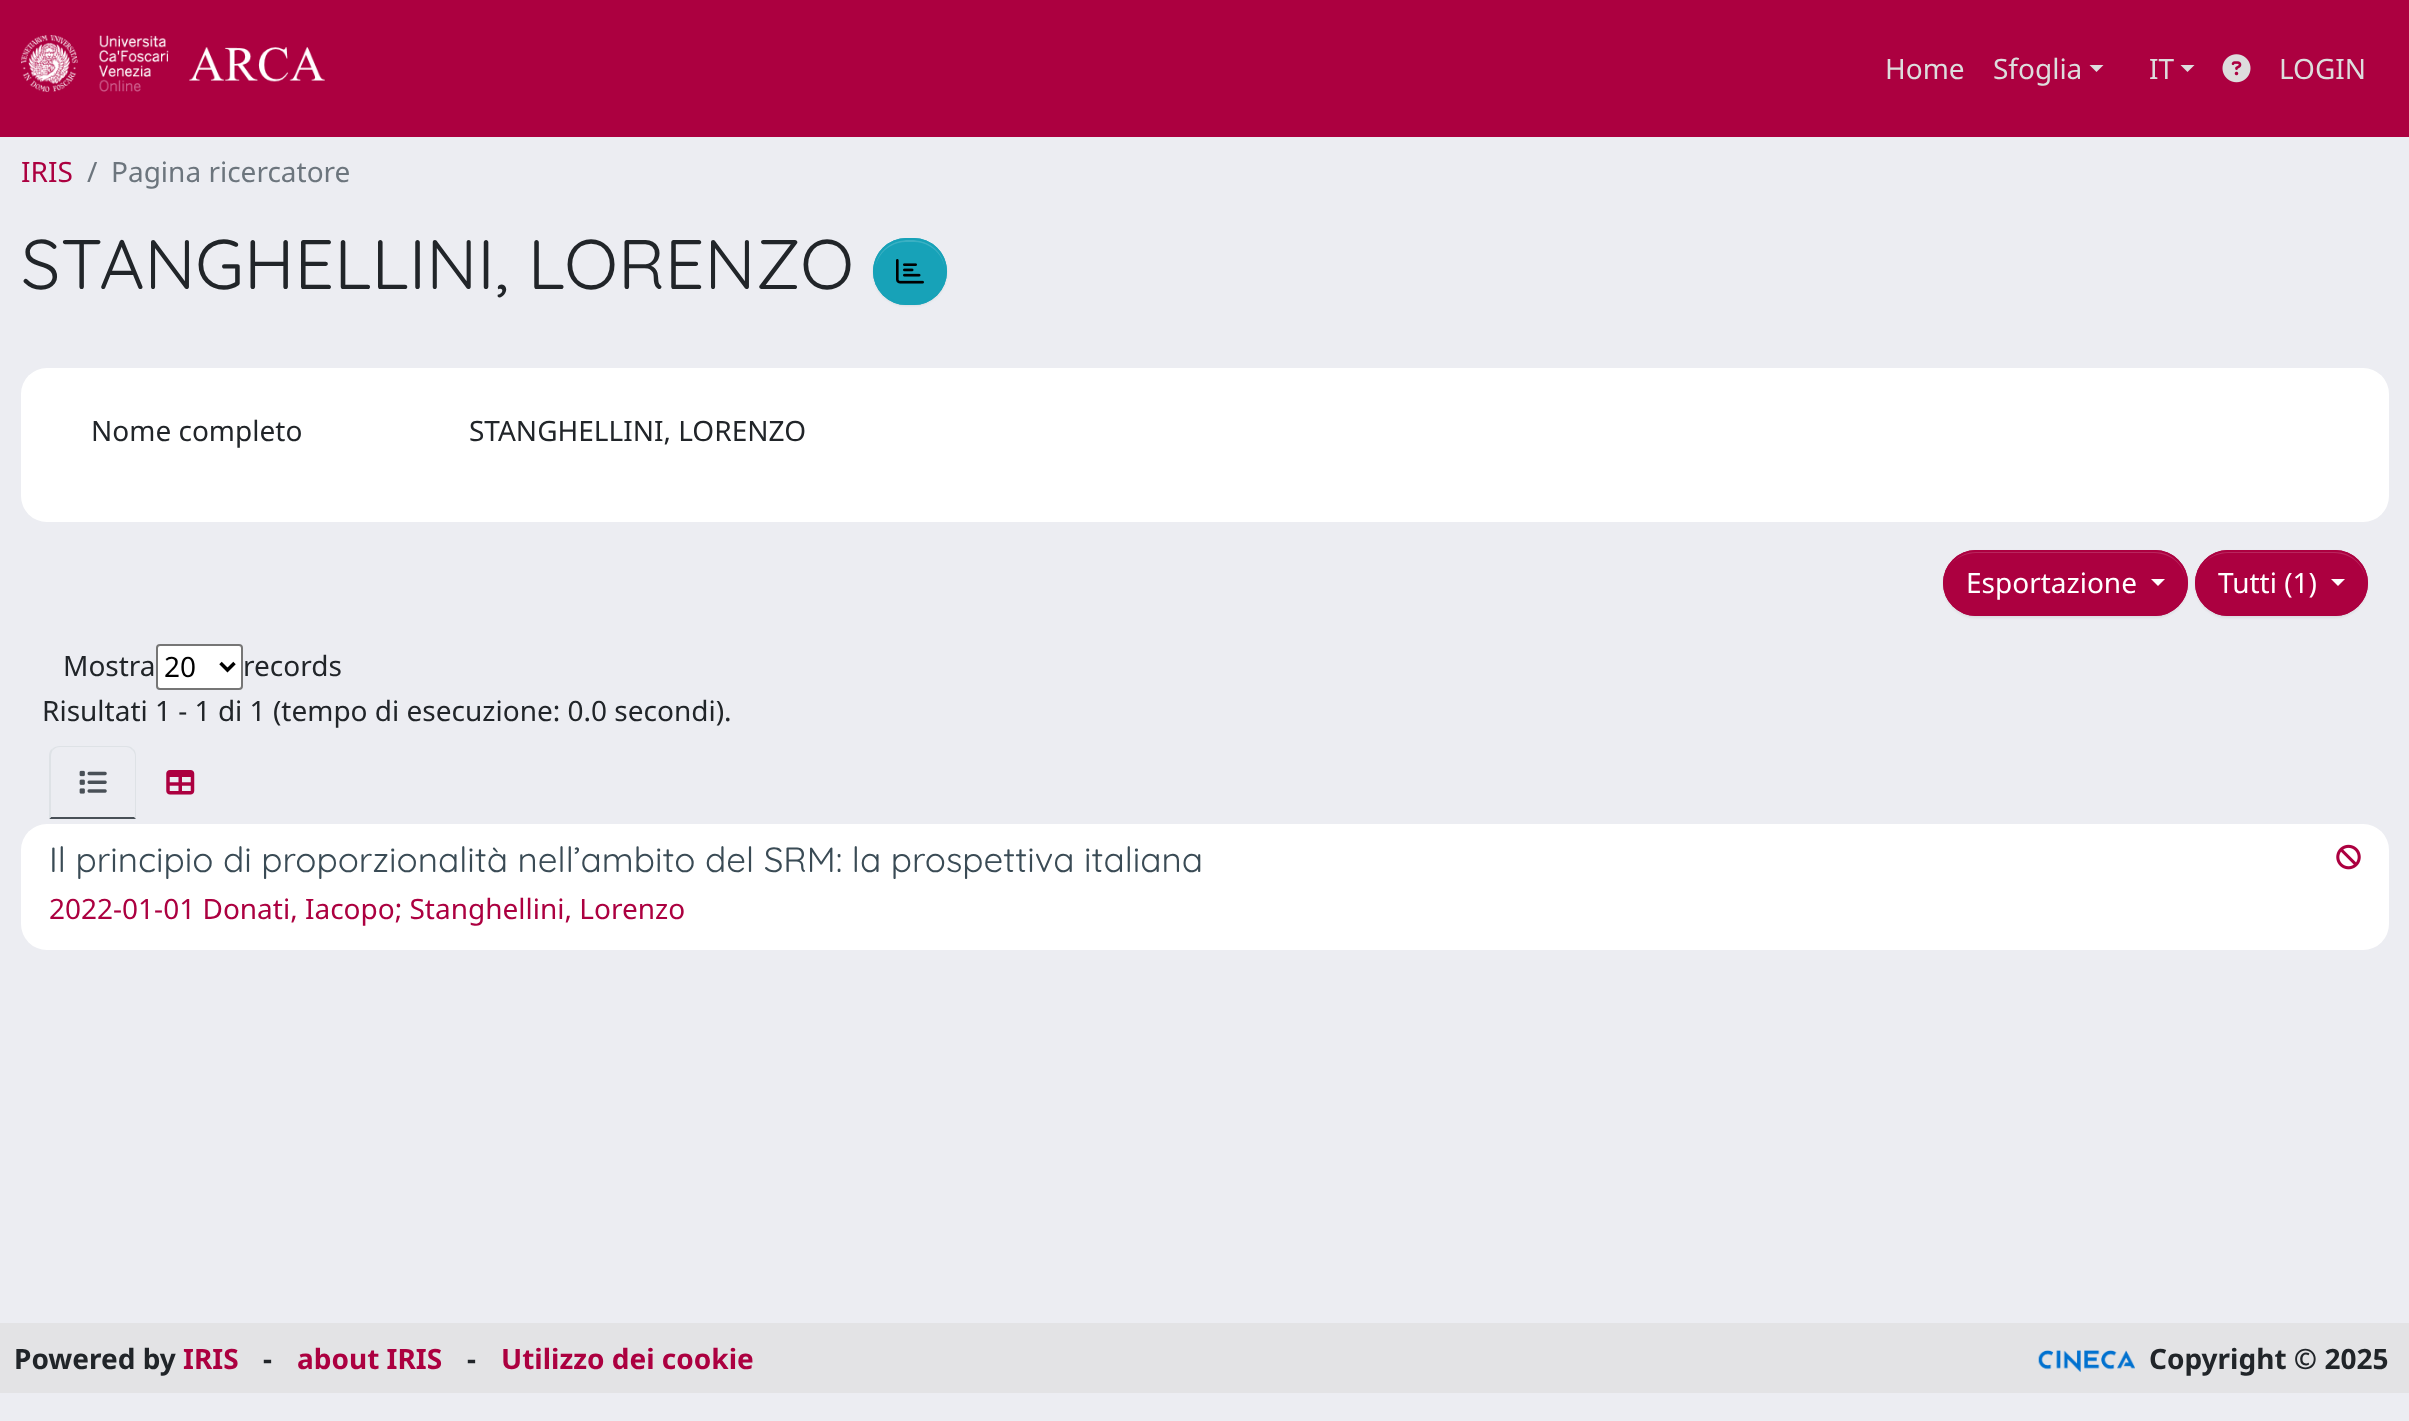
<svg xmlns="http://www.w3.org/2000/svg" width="2409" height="1421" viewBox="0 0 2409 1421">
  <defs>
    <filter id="blur1" x="-50%" y="-200%" width="200%" height="500%"><feGaussianBlur stdDeviation="1"/></filter>
  </defs>
  <rect width="100%" height="100%" fill="#ecedf2"/>
  <rect x="0" y="0" width="2409" height="137" fill="#ac0040"/>
  <image x="21" y="35" width="304" height="57" href="img1.png"/>
  <text x="1885" y="79" font-family="Noto Sans" font-size="28" fill="#dddddd">Home</text>
  <text x="1993" y="79" font-family="Noto Sans" font-size="28" fill="#dddddd">Sfoglia</text>
  <path d="M2089.5 65H2103.5L2096.5 72Z" fill="#dddddd"/>
  <text x="2149" y="79" font-family="Noto Sans" font-size="28" fill="#dddddd">IT</text>
  <path d="M2180.5 65H2194.5L2187.5 72Z" fill="#dddddd"/>
  <image x="2222" y="54" width="29" height="29" href="img2.png"/>
  <text x="2279" y="79" font-family="Noto Sans" font-size="28" fill="#dddddd">LOGIN</text>
  <text x="21" y="182" font-family="Noto Sans" font-size="28" fill="#ac0040">IRIS</text>
  <text x="87" y="182" font-family="Noto Sans" font-size="28" fill="#6c757d">/</text>
  <text x="111" y="182" font-family="Noto Sans" font-size="28" fill="#6c757d">Pagina ricercatore</text>
  <text x="21" y="289" font-family="Quicksand" font-size="70" fill="#212529">STANGHELLINI, LORENZO</text>
  <rect x="873" y="240" width="74" height="66" rx="33" fill="#000000" fill-opacity="0.07" filter="url(#blur1)"/>
  <rect x="873" y="238" width="74" height="67" rx="33.5" fill="#17a2b8"/>
  <path d="M906 242H914C931 242 945 256 945 272C946 229 874 229 875 272C875 256 889 242 906 242Z" fill="#3ab0c3"/>
  <rect x="874" y="239" width="72" height="65" rx="32.5" fill="none" stroke="#17a2b8" stroke-width="2"/>
  <image x="896" y="259" width="28" height="25" href="img3.png"/>
  <rect x="21" y="368" width="2368" height="154" rx="26" fill="#ffffff"/>
  <text x="91" y="441" font-family="Noto Sans" font-size="28" fill="#212529">Nome completo</text>
  <text x="469" y="441" font-family="Noto Sans" font-size="28" fill="#212529">STANGHELLINI, LORENZO</text>
  <rect x="1943" y="551" width="245" height="67" rx="33.5" fill="#000000" fill-opacity="0.07" filter="url(#blur1)"/>
  <rect x="1943" y="550" width="245" height="66" rx="33" fill="#ac0040"/>
  <path d="M1976 553H2154C2172 553 2186 567 2186 583V582C2186 565 2172 551 2154 551H1976C1958 551 1944 565 1944 582V583C1944 567 1958 553 1976 553Z" fill="#b8265d"/>
  <rect x="1944" y="551" width="243" height="64" rx="32" fill="none" stroke="#ac0040" stroke-width="2"/>
  <text x="1966" y="593" font-family="Noto Sans" font-size="28" fill="#ffffff">Esportazione</text>
  <path d="M2151 579H2165L2158 586Z" fill="#ffffff"/>
  <rect x="2195" y="551" width="173" height="67" rx="33.5" fill="#000000" fill-opacity="0.07" filter="url(#blur1)"/>
  <rect x="2195" y="550" width="173" height="66" rx="33" fill="#ac0040"/>
  <path d="M2228 553H2334C2352 553 2366 567 2366 583V582C2366 565 2352 551 2334 551H2228C2210 551 2196 565 2196 582V583C2196 567 2210 553 2228 553Z" fill="#b8265d"/>
  <rect x="2196" y="551" width="171" height="64" rx="32" fill="none" stroke="#ac0040" stroke-width="2"/>
  <text x="2218" y="593" font-family="Noto Sans" font-size="28" fill="#ffffff">Tutti (1)</text>
  <path d="M2331 579H2345L2338 586Z" fill="#ffffff"/>
  <text x="63" y="676" font-family="Noto Sans" font-size="28" fill="#212529">Mostra</text>
  <rect x="157" y="645" width="85" height="44" rx="3" fill="#ffffff" stroke="#767676" stroke-width="2"/>
  <path d="M220.5 663L227.5 670L234.5 663" fill="none" stroke="#000000" stroke-width="3.5"/>
  <text x="164" y="677" font-family="Noto Sans" font-size="28" fill="#000000">20</text>
  <text x="243" y="676" font-family="Noto Sans" font-size="28" fill="#212529">records</text>
  <text x="42" y="721" font-family="Noto Sans" font-size="28" fill="#212529">Risultati 1 - 1 di 1 (tempo di esecuzione: 0.0 secondi).</text>
  <path d="M60 746C57 746 54 747 52 749L53 750C55 748 57 747 60 747H126C128 747 131 748 132 750L133 749C132 747 129 746 126 746Z" fill="#dee2e6"/>
  <path d="M136 818V756C136 753 135 750 133 749L132 750C134 751 135 754 135 756V817H134Z" fill="#dee2e6"/>
  <path d="M136 819L134 817H51L49 819Z" fill="#495057"/>
  <path d="M49 819L51 817V756C51 754 52 751 53 750L52 749C50 750 49 753 49 756Z" fill="#dee2e6"/>
  <image x="79" y="770" width="28" height="24" href="img4.png"/>
  <image x="166" y="770" width="29" height="25" href="img5.png"/>
  <rect x="21" y="824" width="2368" height="126" rx="26" fill="#ffffff"/>
  <text x="49" y="872" font-family="Quicksand" font-size="35" fill="#3a4b55">Il principio di proporzionalità nell’ambito del SRM: la prospettiva italiana</text>
  <image x="2336" y="844" width="25" height="26" href="img6.png"/>
  <text x="49" y="919" font-family="Noto Sans" font-size="28" fill="#ac0040">2022-01-01 Donati, Iacopo; Stanghellini, Lorenzo</text>
  <rect x="0" y="1323" width="2409" height="70" fill="#e3e3e5"/>
  <text x="14" y="1369" font-family="Noto Sans" font-size="28" font-weight="bold" fill="#212529">Powered by</text>
  <text x="183" y="1369" font-family="Noto Sans" font-size="28" font-weight="bold" fill="#ac0040">IRIS</text>
  <text x="263" y="1369" font-family="Noto Sans" font-size="28" font-weight="bold" fill="#212529">-</text>
  <text x="297" y="1369" font-family="Noto Sans" font-size="28" font-weight="bold" fill="#ac0040">about IRIS</text>
  <text x="467" y="1369" font-family="Noto Sans" font-size="28" font-weight="bold" fill="#212529">-</text>
  <text x="501" y="1369" font-family="Noto Sans" font-size="28" font-weight="bold" fill="#ac0040">Utilizzo dei cookie</text>
  <image x="2038" y="1350" width="97" height="22" href="img7.png"/>
  <text x="2149" y="1369" font-family="Noto Sans" font-size="28" font-weight="bold" fill="#212529">Copyright © 2025</text>
</svg>
